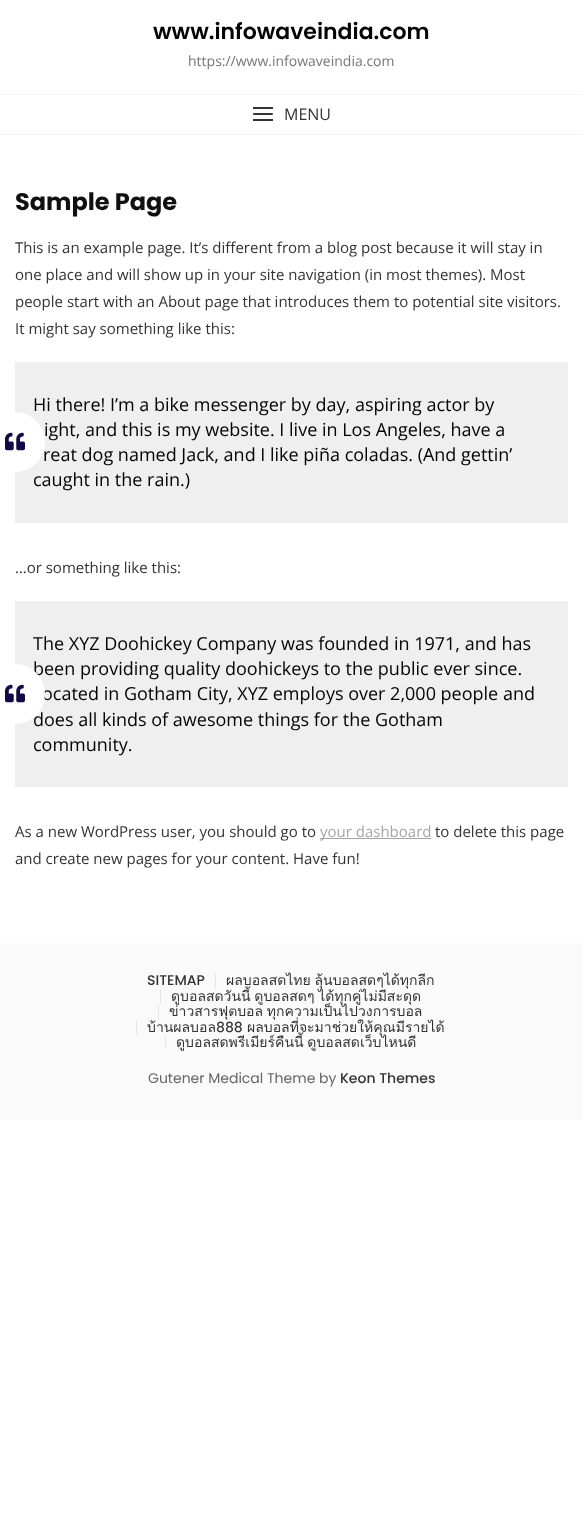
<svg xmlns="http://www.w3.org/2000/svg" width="583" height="1532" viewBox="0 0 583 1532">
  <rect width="100%" height="100%" fill="#ffffff"/>
  <rect x="0" y="94" width="583" height="1" fill="#f5f5f5"/>
  <text x="153" y="39" font-family="Poppins" font-size="22" font-weight="600" fill="#030303">www.infowaveindia.com</text>
  <text x="188" y="66" font-family="Open Sans" font-size="14" fill="#767676">https://www.infowaveindia.com</text>
  <rect x="253" y="113" width="20" height="2" rx="1" fill="#333333"/>
  <rect x="253" y="107" width="20" height="2" fill="#333333"/>
  <rect x="253" y="119" width="20" height="2" fill="#333333"/>
  <text x="284" y="120" font-family="Open Sans" font-size="16" fill="#333333">MENU</text>
  <rect x="0" y="134" width="583" height="1" fill="#f2f2f2"/>
  <text x="15" y="210" font-family="Poppins" font-size="24" font-weight="bold" fill="#101010">Sample Page</text>
  <text x="15" y="253" font-family="Open Sans" font-size="15" fill="#333333">This is an example page. It’s different from a blog post because it will stay in</text>
  <text x="15" y="280" font-family="Open Sans" font-size="15" fill="#333333">one place and will show up in your site navigation (in most themes). Most</text>
  <text x="15" y="307" font-family="Open Sans" font-size="15" fill="#333333">people start with an About page that introduces them to potential site visitors.</text>
  <text x="15" y="334" font-family="Open Sans" font-size="15" fill="#333333">It might say something like this:</text>
  <rect x="15" y="362" width="553" height="161" fill="#efefef"/>
  <text x="33" y="411" font-family="Open Sans" font-size="18" fill="#030303">Hi there! I’m a bike messenger by day, aspiring actor by</text>
  <text x="43" y="461" font-family="Open Sans" font-size="18" fill="#030303">reat dog named Jack, and I like piña coladas. (And gettin’</text>
  <circle cx="15" cy="442" r="30" fill="#ffffff"/>
  <image x="5" y="432" width="20" height="19" href="img1.png"/>
  <text x="44" y="436" font-family="Open Sans" font-size="18" fill="#030303">ight, and this is my website. I live in Los Angeles, have a</text>
  <text x="33" y="486" font-family="Open Sans" font-size="18" fill="#030303">caught in the rain.)</text>
  <text x="15" y="573" font-family="Open Sans" font-size="15" fill="#333333">…or something like this:</text>
  <rect x="15" y="601" width="553" height="186" fill="#efefef"/>
  <text x="33" y="675" font-family="Open Sans" font-size="18" fill="#030303">been providing quality doohickeys to the public ever since.</text>
  <text x="42" y="700" font-family="Open Sans" font-size="18" fill="#030303">ocated in Gotham City, XYZ employs over 2,000 people and</text>
  <text x="33" y="726" font-family="Open Sans" font-size="18" fill="#030303">does all kinds of awesome things for the Gotham</text>
  <circle cx="15" cy="694" r="30" fill="#ffffff"/>
  <image x="5" y="684" width="20" height="19" href="img1.png"/>
  <text x="33" y="650" font-family="Open Sans" font-size="18" fill="#030303">The XYZ Doohickey Company was founded in 1971, and has</text>
  <text x="33" y="751" font-family="Open Sans" font-size="18" fill="#030303">community.</text>
  <text x="15" y="837" font-family="Open Sans" font-size="15" fill="#333333">As a new WordPress user, you should go to</text>
  <rect x="320" y="838" width="111" height="1" fill="#a6a6a6"/>
  <text x="320" y="837" font-family="Open Sans" font-size="15" fill="#a6a6a6">your dashboard</text>
  <text x="435" y="837" font-family="Open Sans" font-size="15" fill="#333333">to delete this page</text>
  <text x="15" y="864" font-family="Open Sans" font-size="15" fill="#333333">and create new pages for your content. Have fun!</text>
  <rect x="0" y="943" width="583" height="177" fill="#fafafa"/>
  <text x="147" y="985" font-family="Poppins" font-size="14" font-weight="500" fill="#333333">SITEMAP</text>
  <rect x="215" y="973" width="1" height="16" fill="#e6e6e6"/>
  <text x="226" y="985" word-spacing="-1" font-family="Loma" font-size="14" fill="#333333">ผลบอลสดไทย ลุ้นบอลสดๆได้ทุกลีก</text>
  <rect x="160" y="989" width="1" height="15" fill="#e6e6e6"/>
  <text x="171" y="1001" word-spacing="-1" font-family="Loma" font-size="14" fill="#333333">ดูบอลสดวันนี้ ดูบอลสดๆ ได้ทุกคู่ไม่มีสะดุด</text>
  <rect x="158" y="1004" width="1" height="16" fill="#e6e6e6"/>
  <text x="169" y="1016" word-spacing="-1" font-family="Loma" font-size="14" fill="#333333">ข่าวสารฟุตบอล ทุกความเป็นไปวงการบอล</text>
  <rect x="136" y="1020" width="1" height="15" fill="#e6e6e6"/>
  <text x="147" y="1032" font-family="Loma" font-size="14" fill="#333333">บ้านผลบอล</text>
  <text x="216" y="1032" font-family="Poppins" font-size="14" font-weight="500" fill="#333333">888</text>
  <text x="247" y="1032" font-family="Loma" font-size="14" fill="#333333">ผลบอลที่จะมาช่วยให้คุณมีรายได้</text>
  <rect x="165" y="1035" width="1" height="15" fill="#e6e6e6"/>
  <text x="176" y="1047" word-spacing="-1" font-family="Loma" font-size="14" fill="#333333">ดูบอลสดพรีเมียร์คืนนี้ ดูบอลสดเว็บไหนดี</text>
  <text x="148" y="1083" font-family="Poppins" font-size="14" fill="#656565">Gutener Medical Theme by</text>
  <text x="340" y="1083" font-family="Poppins" font-size="14" font-weight="500" fill="#333333">Keon Themes</text>
</svg>
